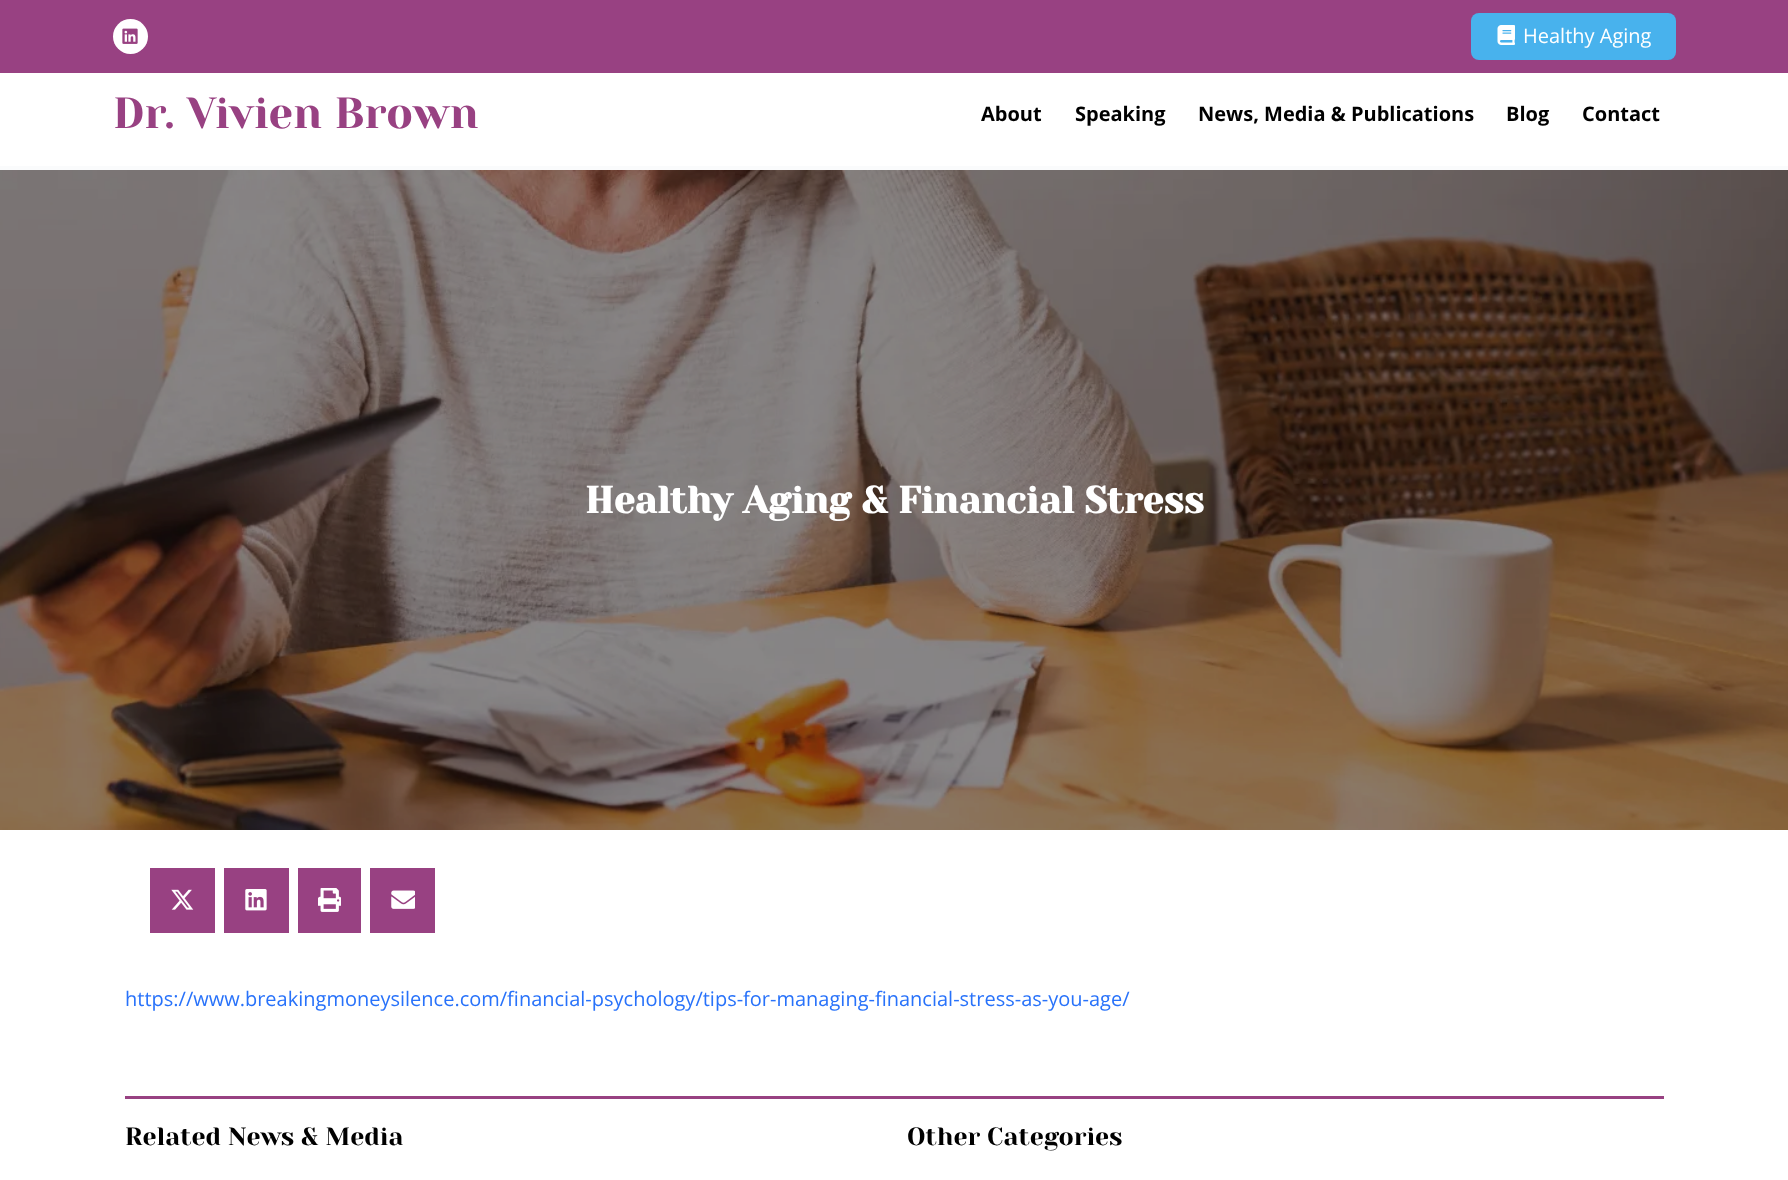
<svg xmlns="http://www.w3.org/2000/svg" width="1788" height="1180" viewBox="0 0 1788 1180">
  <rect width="100%" height="100%" fill="#fafbfc"/>
  <rect x="0" y="0" width="1788" height="73" fill="#984182"/>
  <circle cx="130.5" cy="36.5" r="17.5" fill="#ffffff"/>
  <image x="122" y="28" width="16" height="16" href="img1.png"/>
  <rect x="1471" y="13" width="205" height="47" rx="8" fill="#48b2ed"/>
  <image x="1497" y="25" width="18" height="20" href="img2.png"/>
  <text x="1523" y="43" font-family="Open Sans" font-size="20" fill="#ffffff">Healthy Aging</text>
  <rect x="0" y="73" width="1788" height="93" fill="#ffffff"/>
  <text x="113" y="128" font-family="Yeseva One" font-size="43.75" fill="#984182">Dr. Vivien Brown</text>
  <text x="981" y="121" font-family="Open Sans" font-size="20" font-weight="bold" fill="#000000">About</text>
  <text x="1075" y="121" font-family="Open Sans" font-size="20" font-weight="bold" fill="#000000">Speaking</text>
  <text x="1198" y="121" font-family="Open Sans" font-size="20" font-weight="bold" fill="#000000">News, Media &amp; Publications</text>
  <text x="1506" y="121" font-family="Open Sans" font-size="20" font-weight="bold" fill="#000000">Blog</text>
  <text x="1582" y="121" font-family="Open Sans" font-size="20" font-weight="bold" fill="#000000">Contact</text>
  <rect x="0" y="830" width="1788" height="350" fill="#ffffff"/>
  <image x="0" y="170" width="1788" height="660" href="img3.png"/>
  <text x="585" y="513" font-family="Yeseva One" font-size="37.5" font-weight="bold" fill="#ffffff">Healthy Aging &amp; Financial Stress</text>
  <rect x="150" y="868" width="65" height="65" fill="#984182"/>
  <image x="171" y="889" width="23" height="21" href="img4.png"/>
  <rect x="224" y="868" width="65" height="65" fill="#984182"/>
  <image x="245" y="889" width="22" height="22" href="img5.png"/>
  <rect x="298" y="868" width="63" height="65" fill="#984182"/>
  <image x="318" y="888" width="23" height="24" href="img6.png"/>
  <rect x="370" y="868" width="65" height="65" fill="#984182"/>
  <image x="391" y="890" width="24" height="19" href="img7.png"/>
  <text x="125" y="1006" font-family="Open Sans" font-size="20" fill="#2872fa">https://www.breakingmoneysilence.com/financial-psychology/tips-for-managing-financial-stress-as-you-age/</text>
  <rect x="125" y="1096" width="1539" height="3" fill="#984182"/>
  <text x="125" y="1145" font-family="Yeseva One" font-size="25" fill="#000000">Related News &amp; Media</text>
  <text x="907" y="1145" font-family="Yeseva One" font-size="25" fill="#000000">Other Categories</text>
</svg>
